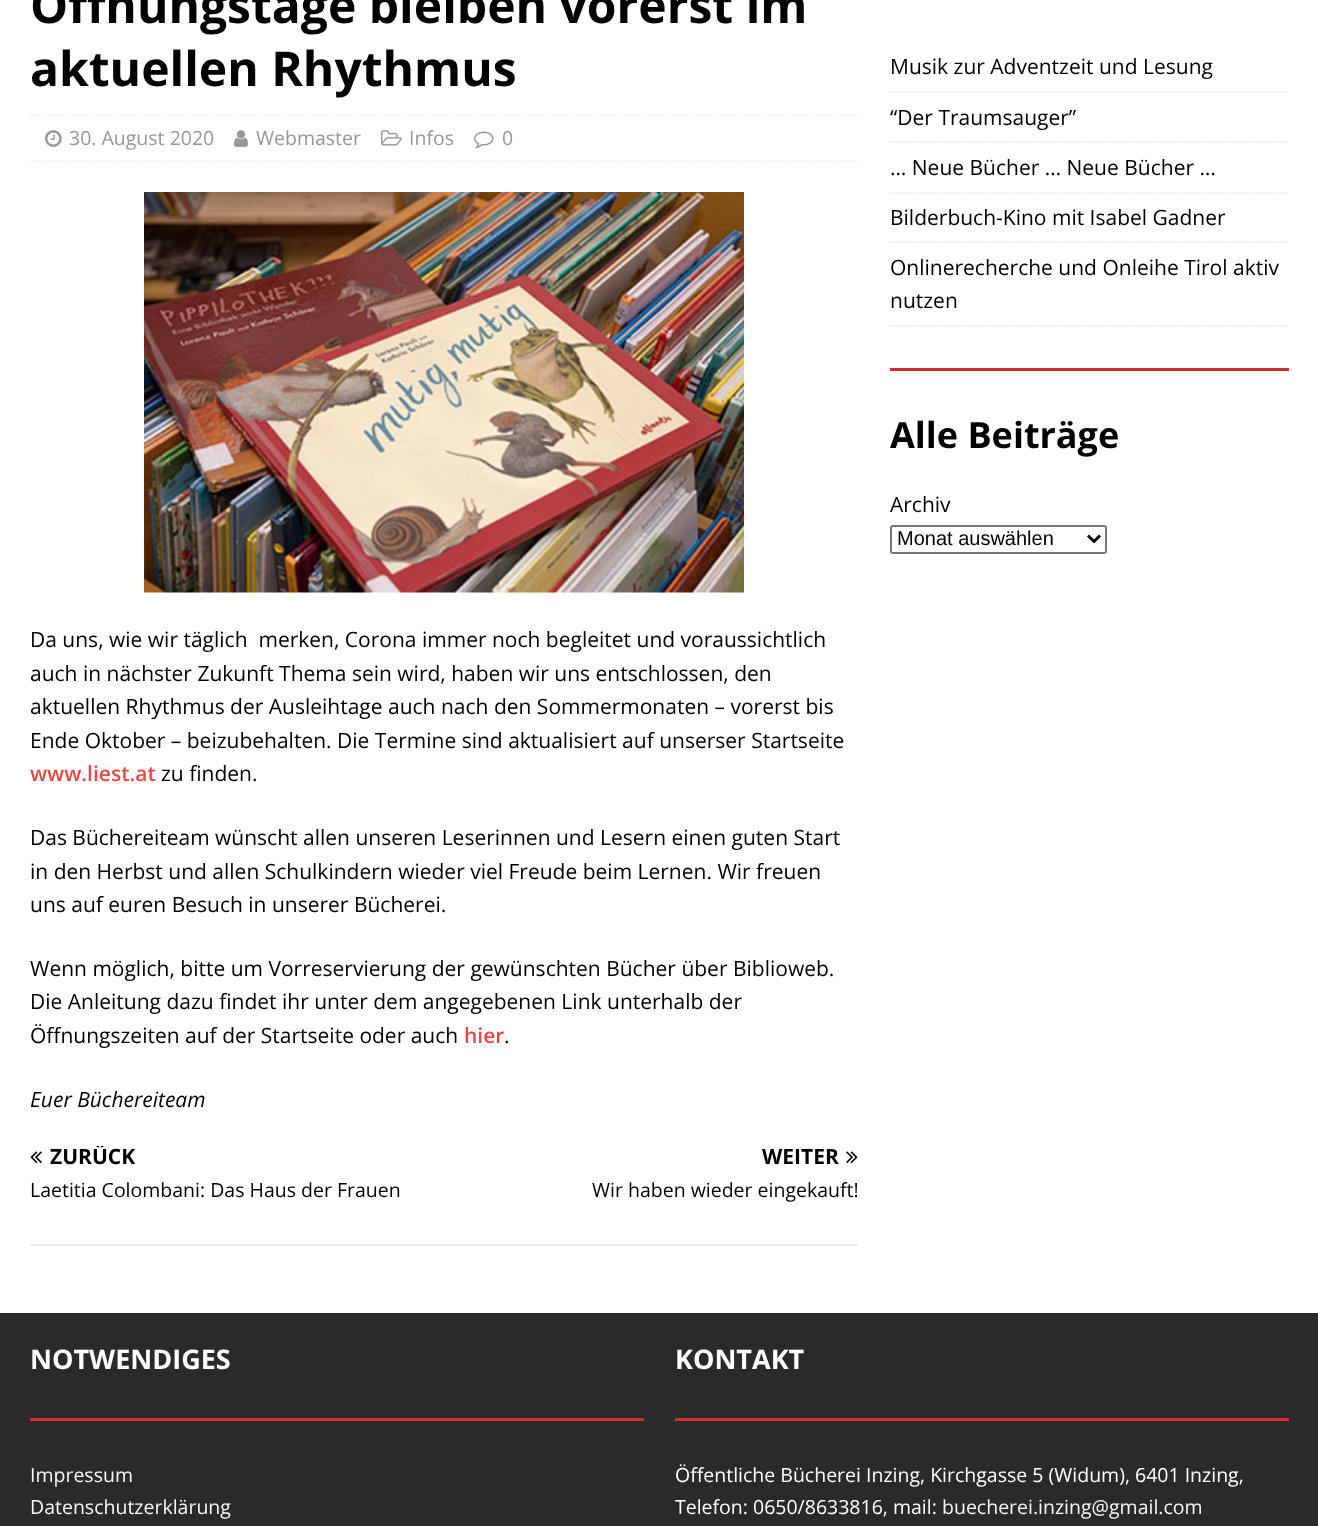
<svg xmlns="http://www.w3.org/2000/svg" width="1318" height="1526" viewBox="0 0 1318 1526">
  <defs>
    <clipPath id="clip1"><rect x="30" y="1146" width="404" height="21"/></clipPath>
  </defs>
  <rect width="100%" height="100%" fill="#ffffff"/>
  <text x="30" y="23" font-family="Open Sans" font-size="48" font-weight="bold" fill="#000000">Öffnungstage bleiben vorerst im</text>
  <text x="30" y="86" font-family="Open Sans" font-size="48" font-weight="bold" fill="#000000">aktuellen Rhythmus</text>
  <path d="M30 115H858" fill="none" stroke="#ebebeb" stroke-width="1.5" stroke-dasharray="1.5 1.5"/>
  <path d="M30 161H858" fill="none" stroke="#ebebeb" stroke-width="1.5" stroke-dasharray="1.5 1.5"/>
  <image x="45" y="130" width="17" height="17" href="img1.png"/>
  <text x="69" y="145" font-family="Open Sans" font-size="19.5" fill="#979797">30. August 2020</text>
  <image x="234" y="130" width="14" height="17" href="img2.png"/>
  <text x="256" y="145" font-family="Open Sans" font-size="19.5" fill="#979797">Webmaster</text>
  <image x="381" y="130" width="21" height="16" href="img3.png"/>
  <text x="409" y="145" font-family="Open Sans" font-size="19.5" fill="#979797">Infos</text>
  <image x="474" y="131" width="20" height="18" href="img4.png"/>
  <text x="502" y="145" font-family="Open Sans" font-size="19.5" fill="#979797">0</text>
  <image x="144" y="192" width="600" height="401" href="img5.png"/>
  <text x="30" y="647" font-family="Open Sans" font-size="21" fill="#000000" xml:space="preserve">Da uns, wie wir täglich  merken, Corona immer noch begleitet und voraussichtlich</text>
  <text x="30" y="681" font-family="Open Sans" font-size="21" fill="#000000">auch in nächster Zukunft Thema sein wird, haben wir uns entschlossen, den</text>
  <text x="30" y="714" font-family="Open Sans" font-size="21" fill="#000000">aktuellen Rhythmus der Ausleihtage auch nach den Sommermonaten – vorerst bis</text>
  <text x="30" y="748" font-family="Open Sans" font-size="21" fill="#000000">Ende Oktober – beizubehalten. Die Termine sind aktualisiert auf unserser Startseite</text>
  <text x="30" y="781" font-family="Open Sans" font-size="21" font-weight="600" fill="#e64946">www.liest.at</text>
  <text x="161" y="781" font-family="Open Sans" font-size="21" fill="#000000">zu finden.</text>
  <text x="30" y="845" font-family="Open Sans" font-size="21" fill="#000000">Das Büchereiteam wünscht allen unseren Leserinnen und Lesern einen guten Start</text>
  <text x="30" y="879" font-family="Open Sans" font-size="21" fill="#000000">in den Herbst und allen Schulkindern wieder viel Freude beim Lernen. Wir freuen</text>
  <text x="30" y="912" font-family="Open Sans" font-size="21" fill="#000000">uns auf euren Besuch in unserer Bücherei.</text>
  <text x="30" y="976" font-family="Open Sans" font-size="21" fill="#000000">Wenn möglich, bitte um Vorreservierung der gewünschten Bücher über Biblioweb.</text>
  <text x="30" y="1009" font-family="Open Sans" font-size="21" fill="#000000">Die Anleitung dazu findet ihr unter dem angegebenen Link unterhalb der</text>
  <text x="30" y="1043" font-family="Open Sans" font-size="21" fill="#000000">Öffnungszeiten auf der Startseite oder auch</text>
  <text x="464" y="1043" font-family="Open Sans" font-size="21" font-weight="600" fill="#e64946">hier</text>
  <text x="504" y="1043" font-family="Open Sans" font-size="21" fill="#000000">.</text>
  <text x="30" y="1107" font-family="Open Sans" font-size="21" font-style="italic" fill="#000000">Euer Büchereiteam</text>
  <rect x="30" y="1244" width="828" height="2" fill="#ebebeb"/>
  <image x="30" y="1151" width="12" height="12" href="img6.png"/>
  <g clip-path="url(#clip1)">
    <text x="50" y="1164" font-family="Open Sans" font-size="21" font-weight="bold" fill="#000000">ZURÜCK</text>
  </g>
  <text x="30" y="1197" font-family="Open Sans" font-size="19.5" fill="#000000">Laetitia Colombani: Das Haus der Frauen</text>
  <text x="762" y="1164" font-family="Open Sans" font-size="21" font-weight="bold" fill="#000000">WEITER</text>
  <image x="846" y="1151" width="12" height="12" href="img7.png"/>
  <text x="592" y="1197" font-family="Open Sans" font-size="19.5" fill="#000000">Wir haben wieder eingekauft!</text>
  <path d="M889.5 92H1288.5" fill="none" stroke="#e5e5e5" stroke-width="1.5" stroke-dasharray="1.5 1.5"/>
  <text x="890" y="74" font-family="Open Sans" font-size="21" fill="#000000">Musik zur Adventzeit und Lesung</text>
  <path d="M889.5 142H1288.5" fill="none" stroke="#e5e5e5" stroke-width="1.5" stroke-dasharray="1.5 1.5"/>
  <text x="890" y="125" font-family="Open Sans" font-size="21" fill="#000000">“Der Traumsauger”</text>
  <path d="M889.5 193H1288.5" fill="none" stroke="#e5e5e5" stroke-width="1.5" stroke-dasharray="1.5 1.5"/>
  <text x="890" y="175" font-family="Open Sans" font-size="21" fill="#000000">… Neue Bücher … Neue Bücher …</text>
  <path d="M889.5 242H1288.5" fill="none" stroke="#e5e5e5" stroke-width="1.5" stroke-dasharray="1.5 1.5"/>
  <text x="890" y="225" font-family="Open Sans" font-size="21" fill="#000000">Bilderbuch-Kino mit Isabel Gadner</text>
  <path d="M889.5 326H1288.5" fill="none" stroke="#e5e5e5" stroke-width="1.5" stroke-dasharray="1.5 1.5"/>
  <text x="890" y="275" font-family="Open Sans" font-size="21" fill="#000000">Onlinerecherche und Onleihe Tirol aktiv</text>
  <text x="890" y="308" font-family="Open Sans" font-size="21" fill="#000000">nutzen</text>
  <rect x="890" y="368" width="399" height="3" fill="#cf2e2e"/>
  <text x="890" y="448" font-family="Open Sans" font-size="36" font-weight="bold" fill="#000000">Alle Beiträge</text>
  <text x="890" y="512" font-family="Open Sans" font-size="21" fill="#000000">Archiv</text>
  <rect x="891" y="526" width="215" height="27" rx="2" fill="none" stroke="#767676" stroke-width="2"/>
  <path d="M1088 535.5L1094 541.5L1100 535.5" fill="none" stroke="#000000" stroke-width="3"/>
  <text x="897" y="545" font-family="Liberation Sans" font-size="20" fill="#000000">Monat auswählen</text>
  <rect x="0" y="1313" width="1318" height="213" fill="#2a2a2a"/>
  <text x="30" y="1369" font-family="Open Sans" font-size="27" font-weight="bold" fill="#ffffff">NOTWENDIGES</text>
  <rect x="30" y="1418" width="614" height="3" fill="#cf2e2e"/>
  <text x="30" y="1482" font-family="Open Sans" font-size="19.5" fill="#f7f7f7">Impressum</text>
  <text x="30" y="1514" font-family="Open Sans" font-size="19.5" fill="#f7f7f7">Datenschutzerklärung</text>
  <text x="675" y="1369" font-family="Open Sans" font-size="27" font-weight="bold" fill="#ffffff">KONTAKT</text>
  <rect x="675" y="1418" width="614" height="3" fill="#cf2e2e"/>
  <text x="675" y="1482" font-family="Open Sans" font-size="19.5" fill="#ffffff">Öffentliche Bücherei Inzing, Kirchgasse 5 (Widum), 6401 Inzing,</text>
  <text x="675" y="1514" font-family="Open Sans" font-size="19.5" fill="#ffffff">Telefon: 0650/8633816, mail:</text>
  <text x="942" y="1514" font-family="Open Sans" font-size="19.5" fill="#f7f7f7">buecherei.inzing@gmail.com</text>
</svg>
